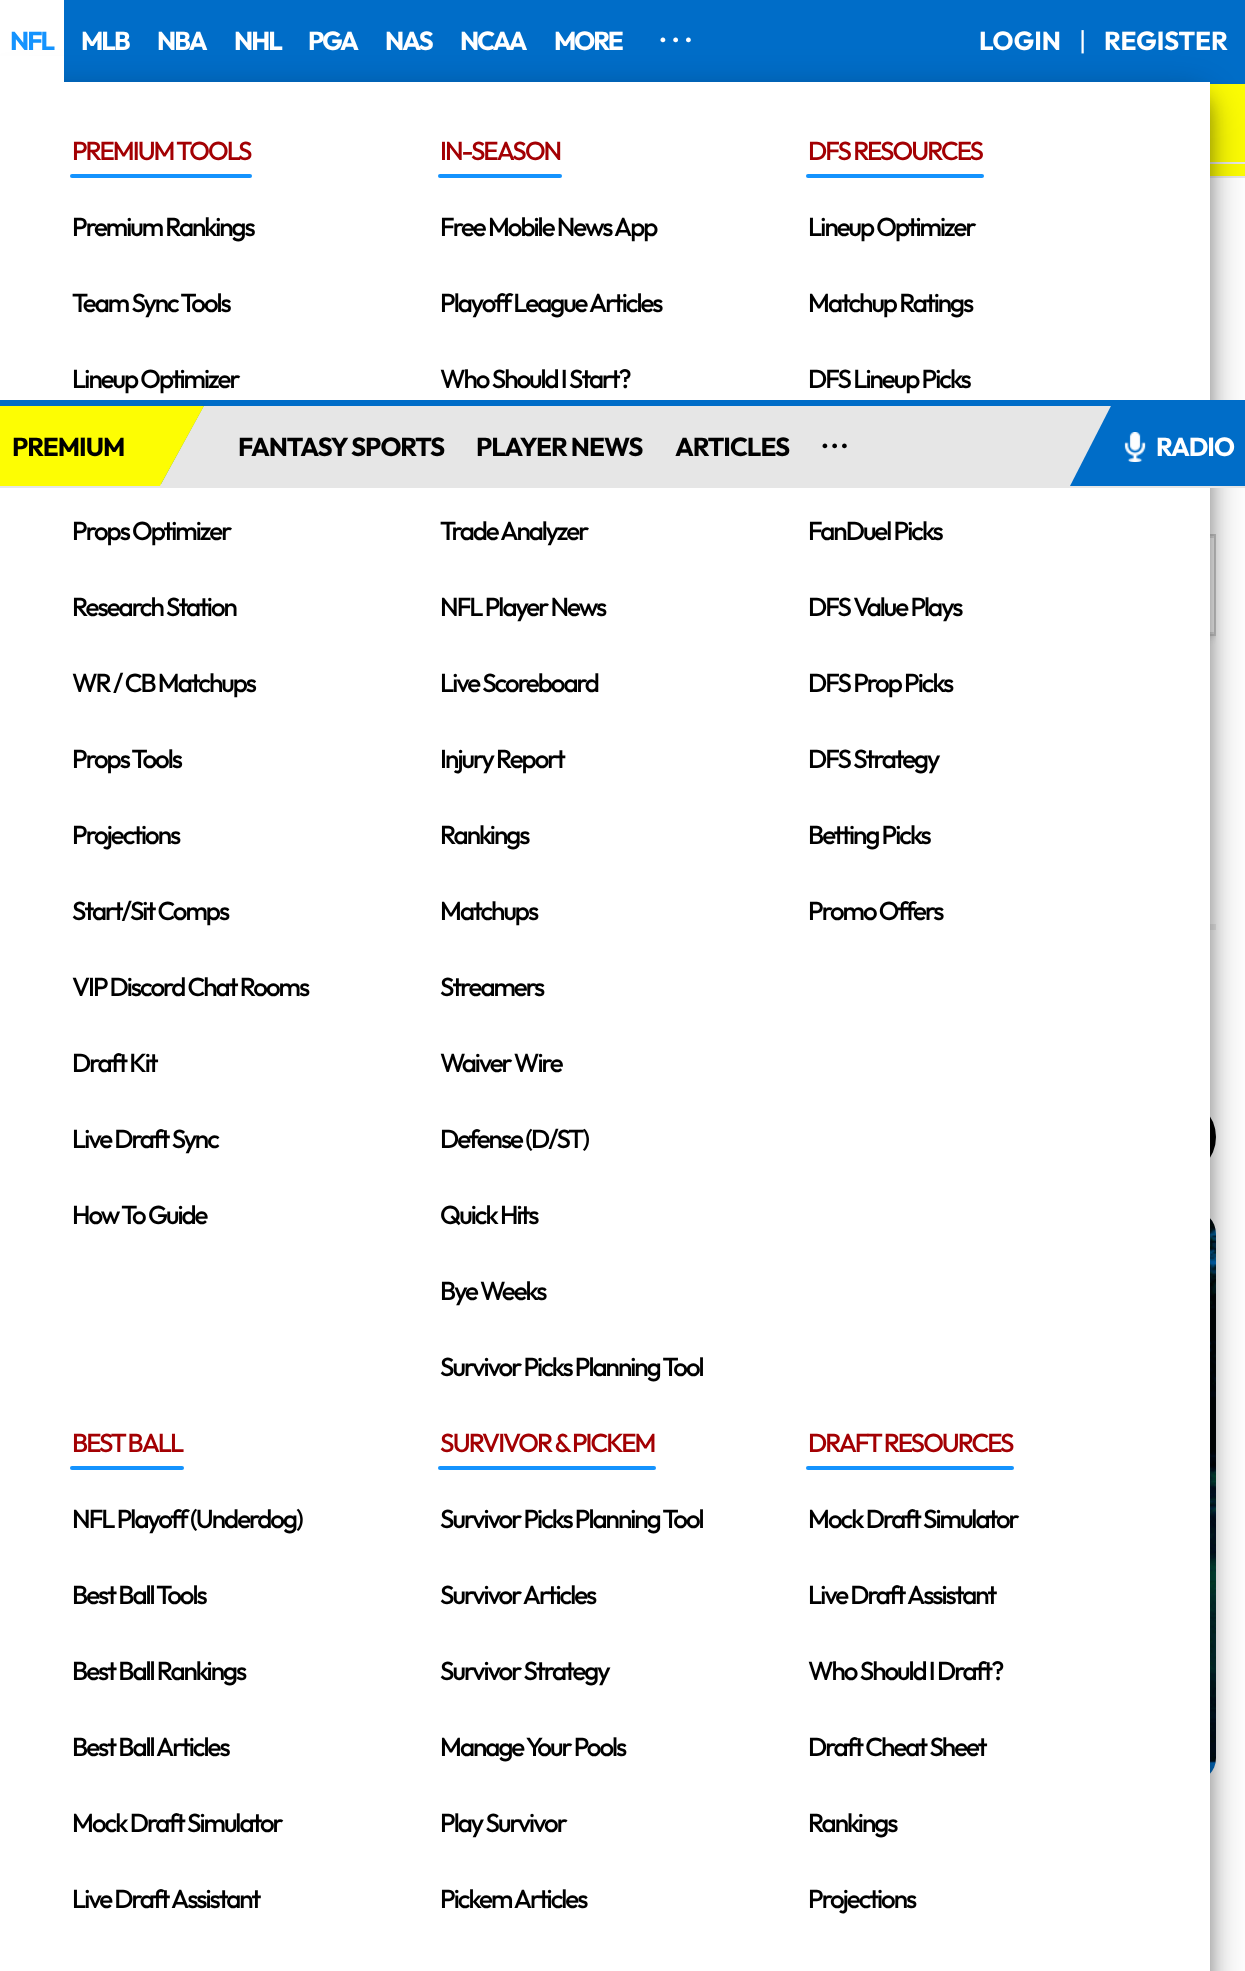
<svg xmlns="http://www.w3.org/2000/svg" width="1245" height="1971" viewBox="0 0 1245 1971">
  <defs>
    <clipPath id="clip1"><rect x="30" y="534" width="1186" height="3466"/></clipPath>
    <filter id="blur1" x="-50%" y="-200%" width="200%" height="500%"><feGaussianBlur stdDeviation="4"/></filter>
    <filter id="blur2" x="-50%" y="-200%" width="200%" height="500%"><feGaussianBlur stdDeviation="21"/></filter>
    <filter id="blur3" x="-50%" y="-200%" width="200%" height="500%"><feGaussianBlur stdDeviation="9"/></filter>
    <clipPath id="clip2"><rect x="0" y="400" width="218" height="84"/></clipPath>
  </defs>
  <rect width="100%" height="100%" fill="#ffffff"/>
  <rect x="64" y="0" width="1181" height="84" fill="#006dc8"/>
  <rect x="1210" y="84" width="35" height="78" fill="#fdfd03"/>
  <rect x="1210" y="162" width="35" height="2" fill="#e6e6e6"/>
  <rect x="1210" y="164" width="35" height="12" fill="#fdfd03"/>
  <rect x="1210" y="176" width="35" height="2" fill="#e6e6e6"/>
  <g clip-path="url(#clip1)">
    <rect x="50" y="534" width="1166" height="102" fill="#cccccc" filter="url(#blur1)"/>
  </g>
  <rect x="51" y="535" width="1164" height="100" fill="none" stroke="#cccccc" stroke-width="2"/>
  <rect x="1210" y="538" width="4" height="94" fill="#fafafa"/>
  <rect x="1210" y="924" width="6" height="6" fill="#ededed"/>
  <rect x="904" y="1098" width="312" height="78" rx="39" fill="#000000"/>
  <image x="1210" y="1218" width="6" height="556" href="img2.png"/>
  <rect x="0" y="94" width="1210" height="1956" rx="16" fill="#000000" fill-opacity="0.3" filter="url(#blur2)"/>
  <rect x="0" y="96" width="1210" height="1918" rx="16" fill="#000000" fill-opacity="0.3" filter="url(#blur3)"/>
  <rect x="0" y="56" width="64" height="26" fill="#ffffff"/>
  <text x="10" y="50" font-family="Outfit" font-size="26" font-weight="bold" letter-spacing="-2" fill="#1493fe">NFL</text>
  <rect x="0" y="82" width="1210" height="1889" fill="#ffffff"/>
  <text x="72" y="160" font-family="Outfit" font-size="26" font-weight="500" letter-spacing="-2" fill="#a30003">PREMIUM TOOLS</text>
  <rect x="70" y="174" width="182" height="4" rx="2" fill="#1493fe"/>
  <text x="72" y="236" font-family="Outfit" font-size="26" font-weight="500" letter-spacing="-2" fill="#000000">Premium Rankings</text>
  <text x="72" y="312" font-family="Outfit" font-size="26" font-weight="500" letter-spacing="-2" fill="#000000">Team Sync Tools</text>
  <text x="72" y="388" font-family="Outfit" font-size="26" font-weight="500" letter-spacing="-2" fill="#000000">Lineup Optimizer</text>
  <text x="72" y="540" font-family="Outfit" font-size="26" font-weight="500" letter-spacing="-2" fill="#000000">Props Optimizer</text>
  <text x="72" y="616" font-family="Outfit" font-size="26" font-weight="500" letter-spacing="-2" fill="#000000">Research Station</text>
  <text x="72" y="692" font-family="Outfit" font-size="26" font-weight="500" letter-spacing="-2" fill="#000000">WR / CB Matchups</text>
  <text x="72" y="768" font-family="Outfit" font-size="26" font-weight="500" letter-spacing="-2" fill="#000000">Props Tools</text>
  <text x="72" y="844" font-family="Outfit" font-size="26" font-weight="500" letter-spacing="-2" fill="#000000">Projections</text>
  <text x="72" y="920" font-family="Outfit" font-size="26" font-weight="500" letter-spacing="-2" fill="#000000">Start/Sit Comps</text>
  <text x="72" y="996" font-family="Outfit" font-size="26" font-weight="500" letter-spacing="-2" fill="#000000">VIP Discord Chat Rooms</text>
  <text x="72" y="1072" font-family="Outfit" font-size="26" font-weight="500" letter-spacing="-2" fill="#000000">Draft Kit</text>
  <text x="72" y="1148" font-family="Outfit" font-size="26" font-weight="500" letter-spacing="-2" fill="#000000">Live Draft Sync</text>
  <text x="72" y="1224" font-family="Outfit" font-size="26" font-weight="500" letter-spacing="-2" fill="#000000">How To Guide</text>
  <text x="440" y="160" font-family="Outfit" font-size="26" font-weight="500" letter-spacing="-2" fill="#a30003">IN-SEASON</text>
  <rect x="438" y="174" width="124" height="4" rx="2" fill="#1493fe"/>
  <text x="440" y="236" font-family="Outfit" font-size="26" font-weight="500" letter-spacing="-2" fill="#000000">Free Mobile News App</text>
  <text x="440" y="312" font-family="Outfit" font-size="26" font-weight="500" letter-spacing="-2" fill="#000000">Playoff League Articles</text>
  <text x="440" y="388" font-family="Outfit" font-size="26" font-weight="500" letter-spacing="-2" fill="#000000">Who Should I Start?</text>
  <text x="440" y="540" font-family="Outfit" font-size="26" font-weight="500" letter-spacing="-2" fill="#000000">Trade Analyzer</text>
  <text x="440" y="616" font-family="Outfit" font-size="26" font-weight="500" letter-spacing="-2" fill="#000000">NFL Player News</text>
  <text x="440" y="692" font-family="Outfit" font-size="26" font-weight="500" letter-spacing="-2" fill="#000000">Live Scoreboard</text>
  <text x="440" y="768" font-family="Outfit" font-size="26" font-weight="500" letter-spacing="-2" fill="#000000">Injury Report</text>
  <text x="440" y="844" font-family="Outfit" font-size="26" font-weight="500" letter-spacing="-2" fill="#000000">Rankings</text>
  <text x="440" y="920" font-family="Outfit" font-size="26" font-weight="500" letter-spacing="-2" fill="#000000">Matchups</text>
  <text x="440" y="996" font-family="Outfit" font-size="26" font-weight="500" letter-spacing="-2" fill="#000000">Streamers</text>
  <text x="440" y="1072" font-family="Outfit" font-size="26" font-weight="500" letter-spacing="-2" fill="#000000">Waiver Wire</text>
  <text x="440" y="1148" font-family="Outfit" font-size="26" font-weight="500" letter-spacing="-2" fill="#000000">Defense (D/ST)</text>
  <text x="440" y="1224" font-family="Outfit" font-size="26" font-weight="500" letter-spacing="-2" fill="#000000">Quick Hits</text>
  <text x="440" y="1300" font-family="Outfit" font-size="26" font-weight="500" letter-spacing="-2" fill="#000000">Bye Weeks</text>
  <text x="440" y="1376" font-family="Outfit" font-size="26" font-weight="500" letter-spacing="-2" fill="#000000">Survivor Picks Planning Tool</text>
  <text x="808" y="160" font-family="Outfit" font-size="26" font-weight="500" letter-spacing="-2" fill="#a30003">DFS RESOURCES</text>
  <rect x="806" y="174" width="178" height="4" rx="2" fill="#1493fe"/>
  <text x="808" y="236" font-family="Outfit" font-size="26" font-weight="500" letter-spacing="-2" fill="#000000">Lineup Optimizer</text>
  <text x="808" y="312" font-family="Outfit" font-size="26" font-weight="500" letter-spacing="-2" fill="#000000">Matchup Ratings</text>
  <text x="808" y="388" font-family="Outfit" font-size="26" font-weight="500" letter-spacing="-2" fill="#000000">DFS Lineup Picks</text>
  <text x="808" y="540" font-family="Outfit" font-size="26" font-weight="500" letter-spacing="-2" fill="#000000">FanDuel Picks</text>
  <text x="808" y="616" font-family="Outfit" font-size="26" font-weight="500" letter-spacing="-2" fill="#000000">DFS Value Plays</text>
  <text x="808" y="692" font-family="Outfit" font-size="26" font-weight="500" letter-spacing="-2" fill="#000000">DFS Prop Picks</text>
  <text x="808" y="768" font-family="Outfit" font-size="26" font-weight="500" letter-spacing="-2" fill="#000000">DFS Strategy</text>
  <text x="808" y="844" font-family="Outfit" font-size="26" font-weight="500" letter-spacing="-2" fill="#000000">Betting Picks</text>
  <text x="808" y="920" font-family="Outfit" font-size="26" font-weight="500" letter-spacing="-2" fill="#000000">Promo Offers</text>
  <text x="72" y="1452" font-family="Outfit" font-size="26" font-weight="500" letter-spacing="-2" fill="#a30003">BEST BALL</text>
  <rect x="70" y="1466" width="114" height="4" rx="2" fill="#1493fe"/>
  <text x="72" y="1528" font-family="Outfit" font-size="26" font-weight="500" letter-spacing="-2" fill="#000000">NFL Playoff (Underdog)</text>
  <text x="72" y="1604" font-family="Outfit" font-size="26" font-weight="500" letter-spacing="-2" fill="#000000">Best Ball Tools</text>
  <text x="72" y="1680" font-family="Outfit" font-size="26" font-weight="500" letter-spacing="-2" fill="#000000">Best Ball Rankings</text>
  <text x="72" y="1756" font-family="Outfit" font-size="26" font-weight="500" letter-spacing="-2" fill="#000000">Best Ball Articles</text>
  <text x="72" y="1832" font-family="Outfit" font-size="26" font-weight="500" letter-spacing="-2" fill="#000000">Mock Draft Simulator</text>
  <text x="72" y="1908" font-family="Outfit" font-size="26" font-weight="500" letter-spacing="-2" fill="#000000">Live Draft Assistant</text>
  <text x="440" y="1452" font-family="Outfit" font-size="26" font-weight="500" letter-spacing="-2" fill="#a30003">SURVIVOR &amp; PICKEM</text>
  <rect x="438" y="1466" width="218" height="4" rx="2" fill="#1493fe"/>
  <text x="440" y="1528" font-family="Outfit" font-size="26" font-weight="500" letter-spacing="-2" fill="#000000">Survivor Picks Planning Tool</text>
  <text x="440" y="1604" font-family="Outfit" font-size="26" font-weight="500" letter-spacing="-2" fill="#000000">Survivor Articles</text>
  <text x="440" y="1680" font-family="Outfit" font-size="26" font-weight="500" letter-spacing="-2" fill="#000000">Survivor Strategy</text>
  <text x="440" y="1756" font-family="Outfit" font-size="26" font-weight="500" letter-spacing="-2" fill="#000000">Manage Your Pools</text>
  <text x="440" y="1832" font-family="Outfit" font-size="26" font-weight="500" letter-spacing="-2" fill="#000000">Play Survivor</text>
  <text x="440" y="1908" font-family="Outfit" font-size="26" font-weight="500" letter-spacing="-2" fill="#000000">Pickem Articles</text>
  <text x="808" y="1452" font-family="Outfit" font-size="26" font-weight="500" letter-spacing="-2" fill="#a30003">DRAFT RESOURCES</text>
  <rect x="806" y="1466" width="208" height="4" rx="2" fill="#1493fe"/>
  <text x="808" y="1528" font-family="Outfit" font-size="26" font-weight="500" letter-spacing="-2" fill="#000000">Mock Draft Simulator</text>
  <text x="808" y="1604" font-family="Outfit" font-size="26" font-weight="500" letter-spacing="-2" fill="#000000">Live Draft Assistant</text>
  <text x="808" y="1680" font-family="Outfit" font-size="26" font-weight="500" letter-spacing="-2" fill="#000000">Who Should I Draft?</text>
  <text x="808" y="1756" font-family="Outfit" font-size="26" font-weight="500" letter-spacing="-2" fill="#000000">Draft Cheat Sheet</text>
  <text x="808" y="1832" font-family="Outfit" font-size="26" font-weight="500" letter-spacing="-2" fill="#000000">Rankings</text>
  <text x="808" y="1908" font-family="Outfit" font-size="26" font-weight="500" letter-spacing="-2" fill="#000000">Projections</text>
  <text x="81" y="50" font-family="Outfit" font-size="26" font-weight="bold" letter-spacing="-2" fill="#ffffff">MLB</text>
  <text x="157" y="50" font-family="Outfit" font-size="26" font-weight="bold" letter-spacing="-2" fill="#ffffff">NBA</text>
  <text x="234" y="50" font-family="Outfit" font-size="26" font-weight="bold" letter-spacing="-2" fill="#ffffff">NHL</text>
  <text x="308" y="50" font-family="Outfit" font-size="26" font-weight="bold" letter-spacing="-2" fill="#ffffff">PGA</text>
  <text x="385" y="50" font-family="Outfit" font-size="26" font-weight="bold" letter-spacing="-2" fill="#ffffff">NAS</text>
  <text x="460" y="50" font-family="Outfit" font-size="26" font-weight="bold" letter-spacing="-2" fill="#ffffff">NCAA</text>
  <text x="554" y="50" font-family="Outfit" font-size="26" font-weight="bold" letter-spacing="-2" fill="#ffffff">MORE</text>
  <text x="659" y="42" font-family="Outfit" font-size="26" font-weight="bold" letter-spacing="5" fill="#ffffff">...</text>
  <text x="979" y="50" font-family="Outfit" font-size="26" font-weight="bold" fill="#ffffff">LOGIN</text>
  <text x="1079" y="50" font-family="Outfit" font-size="26" fill="#ffffff">|</text>
  <text x="1104" y="50" font-family="Outfit" font-size="26" font-weight="bold" fill="#ffffff">REGISTER</text>
  <rect x="0" y="406" width="1245" height="82" fill="#e6e6e6"/>
  <rect x="203" y="400" width="911" height="6" fill="#006dc8"/>
  <path d="M0 484V486H160L161 484Z" fill="#fdfd03"/>
  <path d="M0 400V484H161L207 400Z" fill="#006dc4"/>
  <g clip-path="url(#clip2)">
    <path d="M0 406V486H160L204 406Z" fill="#fdfd03"/>
  </g>
  <text x="12" y="456" font-family="Outfit" font-size="26" font-weight="bold" letter-spacing="-1" fill="#000000">PREMIUM</text>
  <text x="238" y="456" font-family="Outfit" font-size="26" font-weight="bold" letter-spacing="-1" fill="#000000">FANTASY SPORTS</text>
  <text x="476" y="456" font-family="Outfit" font-size="26" font-weight="bold" letter-spacing="-1" fill="#000000">PLAYER NEWS</text>
  <text x="675" y="456" font-family="Outfit" font-size="26" font-weight="bold" letter-spacing="-1" fill="#000000">ARTICLES</text>
  <text x="821" y="448" font-family="Outfit" font-size="26" font-weight="bold" letter-spacing="2" fill="#000000">...</text>
  <path d="M1114 400L1070 486H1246V400Z" fill="#006dc8"/>
  <image x="1124" y="432" width="22" height="30" href="img1.png"/>
  <text x="1156" y="456" font-family="Outfit" font-size="26" font-weight="bold" letter-spacing="-1" fill="#ffffff">RADIO</text>
</svg>
